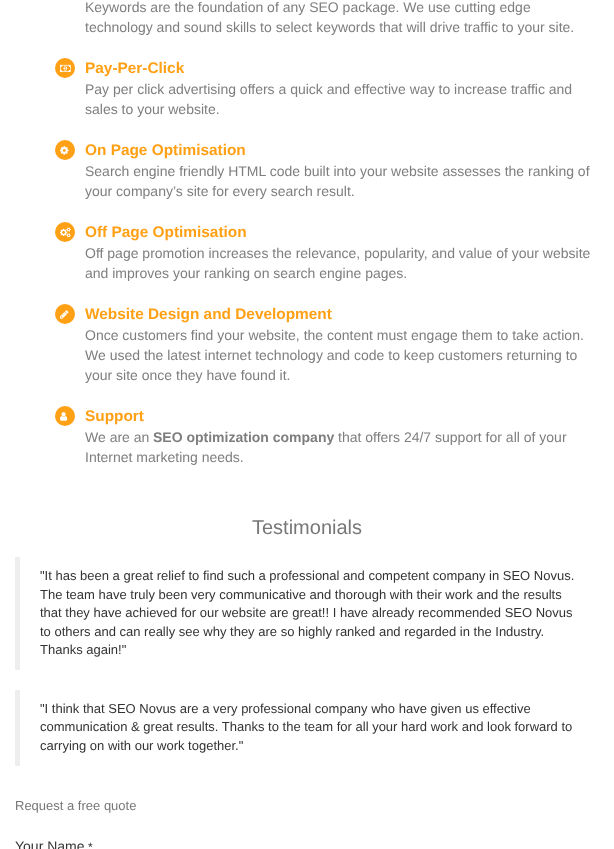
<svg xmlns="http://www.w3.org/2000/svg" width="614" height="849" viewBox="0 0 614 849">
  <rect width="100%" height="100%" fill="#ffffff"/>
  <text x="85" y="12" font-family="Liberation Sans" font-size="14" fill="#7e7e7e">Keywords are the foundation of any SEO package. We use cutting edge</text>
  <text x="85" y="32" font-family="Liberation Sans" font-size="14" fill="#7e7e7e">technology and sound skills to select keywords that will drive traffic to your site.</text>
  <circle cx="65" cy="68" r="10" fill="#ffa015"/>
  <image x="60" y="64" width="11" height="8" href="img1.png"/>
  <text x="85" y="73" font-family="Liberation Sans" font-size="15.4" font-weight="bold" fill="#ffa015">Pay-Per-Click</text>
  <text x="85" y="94" font-family="Liberation Sans" font-size="14" fill="#7e7e7e">Pay per click advertising offers a quick and effective way to increase traffic and</text>
  <text x="85" y="114" font-family="Liberation Sans" font-size="14" fill="#7e7e7e">sales to your website.</text>
  <circle cx="65" cy="150" r="10" fill="#ffa015"/>
  <image x="60" y="146" width="9" height="9" href="img2.png"/>
  <text x="85" y="155" font-family="Liberation Sans" font-size="15.4" font-weight="bold" fill="#ffa015">On Page Optimisation</text>
  <text x="85" y="176" font-family="Liberation Sans" font-size="14" fill="#7e7e7e">Search engine friendly HTML code built into your website assesses the ranking of</text>
  <text x="85" y="196" font-family="Liberation Sans" font-size="14" fill="#7e7e7e">your company’s site for every search result.</text>
  <circle cx="65" cy="232" r="10" fill="#ffa015"/>
  <image x="60" y="227" width="11" height="11" href="img3.png"/>
  <text x="85" y="237" font-family="Liberation Sans" font-size="15.4" font-weight="bold" fill="#ffa015">Off Page Optimisation</text>
  <text x="85" y="258" font-family="Liberation Sans" font-size="14" fill="#7e7e7e">Off page promotion increases the relevance, popularity, and value of your website</text>
  <text x="85" y="278" font-family="Liberation Sans" font-size="14" fill="#7e7e7e">and improves your ranking on search engine pages.</text>
  <circle cx="65" cy="314" r="10" fill="#ffa015"/>
  <image x="60" y="310" width="9" height="9" href="img4.png"/>
  <text x="85" y="319" font-family="Liberation Sans" font-size="15.4" font-weight="bold" fill="#ffa015">Website Design and Development</text>
  <text x="85" y="340" font-family="Liberation Sans" font-size="14" fill="#7e7e7e">Once customers find your website, the content must engage them to take action.</text>
  <text x="85" y="360" font-family="Liberation Sans" font-size="14" fill="#7e7e7e">We used the latest internet technology and code to keep customers returning to</text>
  <text x="85" y="380" font-family="Liberation Sans" font-size="14" fill="#7e7e7e">your site once they have found it.</text>
  <circle cx="65" cy="416" r="10" fill="#ffa015"/>
  <image x="60" y="412" width="8" height="9" href="img5.png"/>
  <text x="85" y="421" font-family="Liberation Sans" font-size="15.4" font-weight="bold" fill="#ffa015">Support</text>
  <text x="85" y="442" font-family="Liberation Sans" font-size="14" fill="#7e7e7e">We are an</text>
  <text x="153" y="442" font-family="Liberation Sans" font-size="14" font-weight="bold" fill="#7e7e7e">SEO optimization company</text>
  <text x="338" y="442" font-family="Liberation Sans" font-size="14" fill="#7e7e7e">that offers 24/7 support for all of your</text>
  <text x="85" y="462" font-family="Liberation Sans" font-size="14" fill="#7e7e7e">Internet marketing needs.</text>
  <text x="252" y="534" font-family="Liberation Sans" font-size="20" fill="#777777">Testimonials</text>
  <rect x="15" y="557" width="5" height="113" fill="#eeeeee"/>
  <text x="40" y="580" font-family="Liberation Sans" font-size="13" fill="#333333">"It has been a great relief to find such a professional and competent company in SEO Novus.</text>
  <text x="40" y="599" font-family="Liberation Sans" font-size="13" fill="#333333">The team have truly been very communicative and thorough with their work and the results</text>
  <text x="40" y="617" font-family="Liberation Sans" font-size="13" fill="#333333">that they have achieved for our website are great!! I have already recommended SEO Novus</text>
  <text x="40" y="636" font-family="Liberation Sans" font-size="13" fill="#333333">to others and can really see why they are so highly ranked and regarded in the Industry.</text>
  <text x="40" y="654" font-family="Liberation Sans" font-size="13" fill="#333333">Thanks again!"</text>
  <rect x="15" y="690" width="5" height="76" fill="#eeeeee"/>
  <text x="40" y="713" font-family="Liberation Sans" font-size="13" fill="#333333">"I think that SEO Novus are a very professional company who have given us effective</text>
  <text x="40" y="731" font-family="Liberation Sans" font-size="13" fill="#333333">communication &amp; great results. Thanks to the team for all your hard work and look forward to</text>
  <text x="40" y="750" font-family="Liberation Sans" font-size="13" fill="#333333">carrying on with our work together."</text>
  <text x="15" y="810" font-family="Liberation Sans" font-size="13" fill="#777777">Request a free quote</text>
  <text x="15" y="851" font-family="Liberation Sans" font-size="14" fill="#333333">Your Name</text>
  <text x="88" y="851" font-family="Liberation Sans" font-size="12" fill="#333333">*</text>
</svg>
